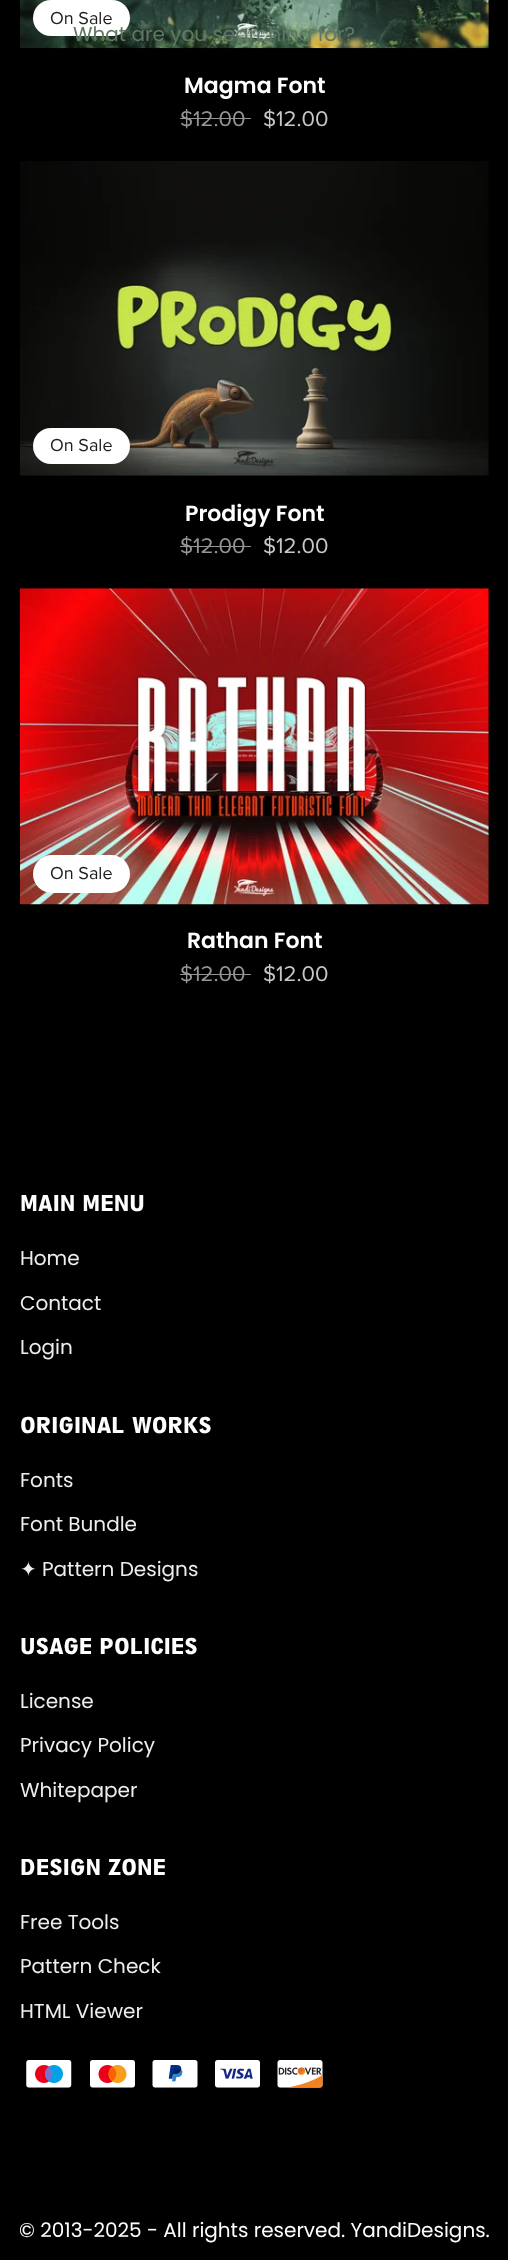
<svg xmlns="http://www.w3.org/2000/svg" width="508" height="2260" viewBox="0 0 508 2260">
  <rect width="100%" height="100%" fill="#000000"/>
  <image x="20" y="0" width="469" height="49" href="img1.png"/>
  <rect x="33" y="0" width="97" height="36" rx="18" fill="#ffffff"/>
  <text x="50" y="24" font-family="Proxima Nova" font-size="18" fill="#1e1e1f">On Sale</text>
  <text x="184" y="93" font-family="Poppins" font-size="22" font-weight="600" fill="#ffffff">Magma Font</text>
  <text x="180" y="126" font-family="Proxima Nova" font-size="22" fill="#959595">$12.00</text>
  <rect x="180" y="118" width="71" height="1" fill="#959595"/>
  <text x="263" y="126" font-family="Proxima Nova" font-size="22" fill="#c7c7c7">$12.00</text>
  <image x="20" y="161" width="469" height="315" href="img2.png"/>
  <rect x="33" y="428" width="97" height="36" rx="18" fill="#ffffff"/>
  <text x="50" y="451" font-family="Proxima Nova" font-size="18" fill="#1e1e1f">On Sale</text>
  <text x="185" y="521" font-family="Poppins" font-size="22" font-weight="600" fill="#ffffff">Prodigy Font</text>
  <text x="180" y="553" font-family="Proxima Nova" font-size="22" fill="#959595">$12.00</text>
  <rect x="180" y="546" width="71" height="1" fill="#959595"/>
  <text x="263" y="553" font-family="Proxima Nova" font-size="22" fill="#c7c7c7">$12.00</text>
  <image x="20" y="588" width="469" height="317" href="img3.png"/>
  <rect x="33" y="855" width="97" height="38" rx="19" fill="#ffffff"/>
  <text x="50" y="879" font-family="Proxima Nova" font-size="18" fill="#1e1e1f">On Sale</text>
  <text x="187" y="948" font-family="Poppins" font-size="22" font-weight="600" fill="#ffffff">Rathan Font</text>
  <text x="180" y="981" font-family="Proxima Nova" font-size="22" fill="#959595">$12.00</text>
  <rect x="180" y="974" width="71" height="1" fill="#959595"/>
  <text x="263" y="981" font-family="Proxima Nova" font-size="22" fill="#c7c7c7">$12.00</text>
  <text x="73" y="41" font-family="Poppins" font-size="20" fill="#627763">What are you searching for?</text>
  <text x="20" y="1211" font-family="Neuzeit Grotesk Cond" font-size="24" font-weight="900" fill="#ffffff">MAIN MENU</text>
  <text x="20" y="1265" font-family="Poppins" font-size="20" fill="#eeeeee">Home</text>
  <text x="20" y="1310" font-family="Poppins" font-size="20" fill="#eeeeee">Contact</text>
  <text x="20" y="1354" font-family="Poppins" font-size="20" fill="#eeeeee">Login</text>
  <text x="20" y="1433" font-family="Neuzeit Grotesk Cond" font-size="24" font-weight="900" fill="#ffffff">ORIGINAL WORKS</text>
  <text x="20" y="1487" font-family="Poppins" font-size="20" fill="#eeeeee">Fonts</text>
  <text x="20" y="1531" font-family="Poppins" font-size="20" fill="#eeeeee">Font Bundle</text>
  <text x="20" y="1576" font-family="DejaVu Sans" font-size="20" fill="#eeeeee">✦</text>
  <text x="42" y="1576" font-family="Poppins" font-size="20" fill="#eeeeee">Pattern Designs</text>
  <text x="20" y="1654" font-family="Neuzeit Grotesk Cond" font-size="24" font-weight="900" fill="#ffffff">USAGE POLICIES</text>
  <text x="20" y="1708" font-family="Poppins" font-size="20" fill="#eeeeee">License</text>
  <text x="20" y="1752" font-family="Poppins" font-size="20" fill="#eeeeee">Privacy Policy</text>
  <text x="20" y="1797" font-family="Poppins" font-size="20" fill="#eeeeee">Whitepaper</text>
  <text x="20" y="1875" font-family="Neuzeit Grotesk Cond" font-size="24" font-weight="900" fill="#ffffff">DESIGN ZONE</text>
  <text x="20" y="1929" font-family="Poppins" font-size="20" fill="#eeeeee">Free Tools</text>
  <text x="20" y="1973" font-family="Poppins" font-size="20" fill="#eeeeee">Pattern Check</text>
  <text x="20" y="2018" font-family="Poppins" font-size="20" fill="#eeeeee">HTML Viewer</text>
  <image x="26" y="2060" width="46" height="28" href="img4.png"/>
  <image x="90" y="2060" width="45" height="28" href="img5.png"/>
  <image x="152" y="2060" width="46" height="28" href="img6.png"/>
  <image x="215" y="2060" width="45" height="28" href="img7.png"/>
  <image x="277" y="2060" width="46" height="28" href="img8.png"/>
  <text x="19" y="2237" font-family="Poppins" font-size="20" fill="#ffffff">© 2013-2025 - All rights reserved. YandiDesigns.</text>
</svg>
